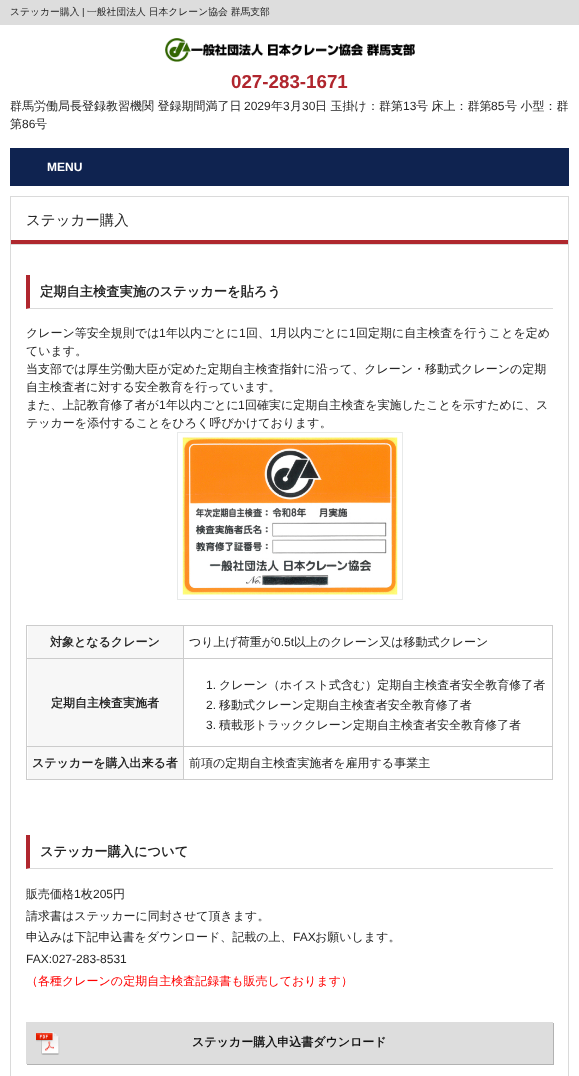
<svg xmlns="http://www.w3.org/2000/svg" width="579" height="1076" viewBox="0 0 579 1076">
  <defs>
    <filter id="blur1" x="-50%" y="-200%" width="200%" height="500%"><feGaussianBlur stdDeviation="0.5"/></filter>
  </defs>
  <rect width="100%" height="100%" fill="#ffffff"/>
  <rect x="0" y="0" width="579" height="25" fill="#dddddd"/>
  <text x="10" y="15" font-family="WenQuanYi Zen Hei" font-size="9.8" font-weight="500" fill="#252525">ステッカー購入</text>
  <text x="82" y="15" font-family="Liberation Sans" font-size="9.8" fill="#252525">|</text>
  <text x="87" y="15" font-family="WenQuanYi Zen Hei" font-size="9.8" font-weight="500" fill="#252525">一般社団法人 日本クレーン協会 群馬支部</text>
  <image x="165" y="38" width="250" height="24" href="img1.png"/>
  <text x="231" y="88" font-family="Liberation Sans" font-size="18.75" font-weight="bold" fill="#b0262e">027-283-1671</text>
  <text x="10" y="110" font-family="WenQuanYi Zen Hei" font-size="12" font-weight="500" fill="#252525">群馬労働局長登録教習機関 登録期間満了日</text>
  <text x="244" y="110" font-family="Liberation Sans" font-size="12" fill="#252525">2029</text>
  <text x="271" y="110" font-family="WenQuanYi Zen Hei" font-size="12" font-weight="500" fill="#252525">年</text>
  <text x="283" y="110" font-family="Liberation Sans" font-size="12" fill="#252525">3</text>
  <text x="290" y="110" font-family="WenQuanYi Zen Hei" font-size="12" font-weight="500" fill="#252525">月</text>
  <text x="302" y="110" font-family="Liberation Sans" font-size="12" fill="#252525">30</text>
  <text x="315" y="110" font-family="WenQuanYi Zen Hei" font-size="12" font-weight="500" fill="#252525">日 玉掛け：群第</text>
  <text x="403" y="110" font-family="Liberation Sans" font-size="12" fill="#252525">13</text>
  <text x="416" y="110" font-family="WenQuanYi Zen Hei" font-size="12" font-weight="500" fill="#252525">号 床上：群第</text>
  <text x="491" y="110" font-family="Liberation Sans" font-size="12" fill="#252525">85</text>
  <text x="505" y="110" font-family="WenQuanYi Zen Hei" font-size="12" font-weight="500" fill="#252525">号 小型：群</text>
  <text x="10" y="128" font-family="WenQuanYi Zen Hei" font-size="12" font-weight="500" fill="#252525">第</text>
  <text x="22" y="128" font-family="Liberation Sans" font-size="12" fill="#252525">86</text>
  <text x="35" y="128" font-family="WenQuanYi Zen Hei" font-size="12" font-weight="500" fill="#252525">号</text>
  <rect x="11" y="149" width="557" height="36" fill="none" stroke="#0f2350" stroke-width="2"/>
  <rect x="12" y="150" width="555" height="34" fill="#0f2350"/>
  <text x="47" y="171" font-family="Liberation Sans" font-size="12" font-weight="bold" fill="#ffffff">MENU</text>
  <rect x="10" y="240" width="559" height="4" fill="#af282e"/>
  <rect x="10" y="196" width="559" height="1" fill="#dadada"/>
  <rect x="568" y="196" width="1" height="48" fill="#dadada"/>
  <rect x="10" y="196" width="1" height="48" fill="#dadada"/>
  <text x="26" y="225" font-family="WenQuanYi Zen Hei" font-size="14.5" font-weight="500" fill="#252525">ステッカー購入</text>
  <rect x="10.5" y="244.5" width="558" height="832" fill="none" stroke="#dadada"/>
  <path d="M553 309H26L30 308H553Z" fill="#dadada"/>
  <path d="M26 309V275H30V308Z" fill="#b0262e"/>
  <text x="40" y="296" font-family="WenQuanYi Zen Hei" font-size="13.25" font-weight="bold" fill="#252525">定期自主検査実施のステッカーを貼ろう</text>
  <text x="26" y="337" font-family="WenQuanYi Zen Hei" font-size="12" font-weight="500" fill="#252525">クレーン等安全規則では</text>
  <text x="159" y="337" font-family="Liberation Sans" font-size="12" fill="#252525">1</text>
  <text x="166" y="337" font-family="WenQuanYi Zen Hei" font-size="12" font-weight="500" fill="#252525">年以内ごとに</text>
  <text x="239" y="337" font-family="Liberation Sans" font-size="12" fill="#252525">1</text>
  <text x="246" y="337" font-family="WenQuanYi Zen Hei" font-size="12" font-weight="500" fill="#252525">回、</text>
  <text x="270" y="337" font-family="Liberation Sans" font-size="12" fill="#252525">1</text>
  <text x="276" y="337" font-family="WenQuanYi Zen Hei" font-size="12" font-weight="500" fill="#252525">月以内ごとに</text>
  <text x="349" y="337" font-family="Liberation Sans" font-size="12" fill="#252525">1</text>
  <text x="356" y="337" font-family="WenQuanYi Zen Hei" font-size="12" font-weight="500" fill="#252525">回定期に自主検査を行うことを定め</text>
  <text x="26" y="355" font-family="WenQuanYi Zen Hei" font-size="12" font-weight="500" fill="#252525">ています。</text>
  <text x="26" y="373" font-family="WenQuanYi Zen Hei" font-size="12" font-weight="500" fill="#252525">当支部では厚生労働大臣が定めた定期自主検査指針に沿って、クレーン・移動式クレーンの定期</text>
  <text x="26" y="391" font-family="WenQuanYi Zen Hei" font-size="12" font-weight="500" fill="#252525">自主検査者に対する安全教育を行っています。</text>
  <text x="26" y="409" font-family="WenQuanYi Zen Hei" font-size="12" font-weight="500" fill="#252525">また、上記教育修了者が</text>
  <text x="159" y="409" font-family="Liberation Sans" font-size="12" fill="#252525">1</text>
  <text x="166" y="409" font-family="WenQuanYi Zen Hei" font-size="12" font-weight="500" fill="#252525">年以内ごとに</text>
  <text x="238" y="409" font-family="Liberation Sans" font-size="12" fill="#252525">1</text>
  <text x="245" y="409" font-family="WenQuanYi Zen Hei" font-size="12" font-weight="500" fill="#252525">回確実に定期自主検査を実施したことを示すために、ス</text>
  <text x="26" y="427" font-family="WenQuanYi Zen Hei" font-size="12" font-weight="500" fill="#252525">テッカーを添付することをひろく呼びかけております。</text>
  <rect x="177.5" y="432.5" width="225" height="167" fill="none" stroke="#e8eaea"/>
  <image x="182" y="437" width="216" height="158" href="img2.png"/>
  <rect x="26" y="625" width="527" height="1" fill="#cccccc"/>
  <rect x="552" y="625" width="1" height="155" fill="#cccccc"/>
  <rect x="26" y="779" width="527" height="1" fill="#cccccc"/>
  <rect x="26" y="625" width="1" height="155" fill="#cccccc"/>
  <rect x="28" y="626" width="155" height="32" fill="#f7f7f7"/>
  <rect x="183" y="746" width="1" height="34" fill="#cccccc"/>
  <rect x="183" y="746" width="370" height="1" fill="#cccccc"/>
  <rect x="183" y="658" width="1" height="89" fill="#cccccc"/>
  <rect x="183" y="658" width="370" height="1" fill="#cccccc"/>
  <rect x="183" y="625" width="1" height="34" fill="#cccccc"/>
  <rect x="26" y="658" width="158" height="1" fill="#cccccc"/>
  <text x="50" y="646" font-family="WenQuanYi Zen Hei" font-size="12" font-weight="bold" fill="#252525">対象となるクレーン</text>
  <text x="189" y="646" font-family="WenQuanYi Zen Hei" font-size="12" font-weight="500" fill="#252525">つり上げ荷重が</text>
  <text x="274" y="646" font-family="Liberation Sans" font-size="12" fill="#252525">0.5t</text>
  <text x="294" y="646" font-family="WenQuanYi Zen Hei" font-size="12" font-weight="500" fill="#252525">以上のクレーン又は移動式クレーン</text>
  <rect x="28" y="659" width="155" height="87" fill="#f7f7f7"/>
  <rect x="26" y="746" width="158" height="1" fill="#cccccc"/>
  <text x="51" y="707" font-family="WenQuanYi Zen Hei" font-size="12" font-weight="bold" fill="#252525">定期自主検査実施者</text>
  <text x="206" y="689" font-family="Liberation Sans" font-size="12" fill="#252525">1.</text>
  <text x="219" y="689" font-family="WenQuanYi Zen Hei" font-size="12" font-weight="500" fill="#252525">クレーン（ホイスト式含む）定期自主検査者安全教育修了者</text>
  <text x="206" y="709" font-family="Liberation Sans" font-size="12" fill="#252525">2.</text>
  <text x="219" y="709" font-family="WenQuanYi Zen Hei" font-size="12" font-weight="500" fill="#252525">移動式クレーン定期自主検査者安全教育修了者</text>
  <text x="206" y="729" font-family="Liberation Sans" font-size="12" fill="#252525">3.</text>
  <text x="219" y="729" font-family="WenQuanYi Zen Hei" font-size="12" font-weight="500" fill="#252525">積載形トラッククレーン定期自主検査者安全教育修了者</text>
  <rect x="28" y="747" width="155" height="32" fill="#f7f7f7"/>
  <text x="32" y="767" font-family="WenQuanYi Zen Hei" font-size="12" font-weight="bold" fill="#252525">ステッカーを購入出来る者</text>
  <text x="189" y="767" font-family="WenQuanYi Zen Hei" font-size="12" font-weight="500" fill="#252525">前項の定期自主検査実施者を雇用する事業主</text>
  <path d="M553 869H26L30 868H553Z" fill="#dadada"/>
  <path d="M26 869V835H30V868Z" fill="#b0262e"/>
  <text x="40" y="856" font-family="WenQuanYi Zen Hei" font-size="13.25" font-weight="bold" fill="#252525">ステッカー購入について</text>
  <text x="26" y="898" font-family="WenQuanYi Zen Hei" font-size="12" font-weight="500" fill="#252525">販売価格</text>
  <text x="74" y="898" font-family="Liberation Sans" font-size="12" fill="#252525">1</text>
  <text x="81" y="898" font-family="WenQuanYi Zen Hei" font-size="12" font-weight="500" fill="#252525">枚</text>
  <text x="93" y="898" font-family="Liberation Sans" font-size="12" fill="#252525">205</text>
  <text x="113" y="898" font-family="WenQuanYi Zen Hei" font-size="12" font-weight="500" fill="#252525">円</text>
  <text x="26" y="920" font-family="WenQuanYi Zen Hei" font-size="12" font-weight="500" fill="#252525">請求書はステッカーに同封させて頂きます。</text>
  <text x="26" y="941" font-family="WenQuanYi Zen Hei" font-size="12" font-weight="500" fill="#252525">申込みは下記申込書をダウンロード、記載の上、</text>
  <text x="293" y="941" font-family="Liberation Sans" font-size="12" fill="#252525">FAX</text>
  <text x="315" y="941" font-family="WenQuanYi Zen Hei" font-size="12" font-weight="500" fill="#252525">お願いします。</text>
  <text x="26" y="963" font-family="Liberation Sans" font-size="12" fill="#252525">FAX:027-283-8531</text>
  <text x="26" y="985" font-family="WenQuanYi Zen Hei" font-size="12" font-weight="500" fill="#ff0000">（各種クレーンの定期自主検査記録書も販売しております）</text>
  <rect x="27" y="1023" width="527" height="42" fill="#000000" fill-opacity="0.3" filter="url(#blur1)"/>
  <rect x="26" y="1022" width="527" height="42" fill="#dddddd"/>
  <image x="36" y="1032" width="24" height="23" href="img3.png"/>
  <text x="192" y="1046" font-family="WenQuanYi Zen Hei" font-size="12" font-weight="bold" fill="#111111">ステッカー購入申込書ダウンロード</text>
</svg>
